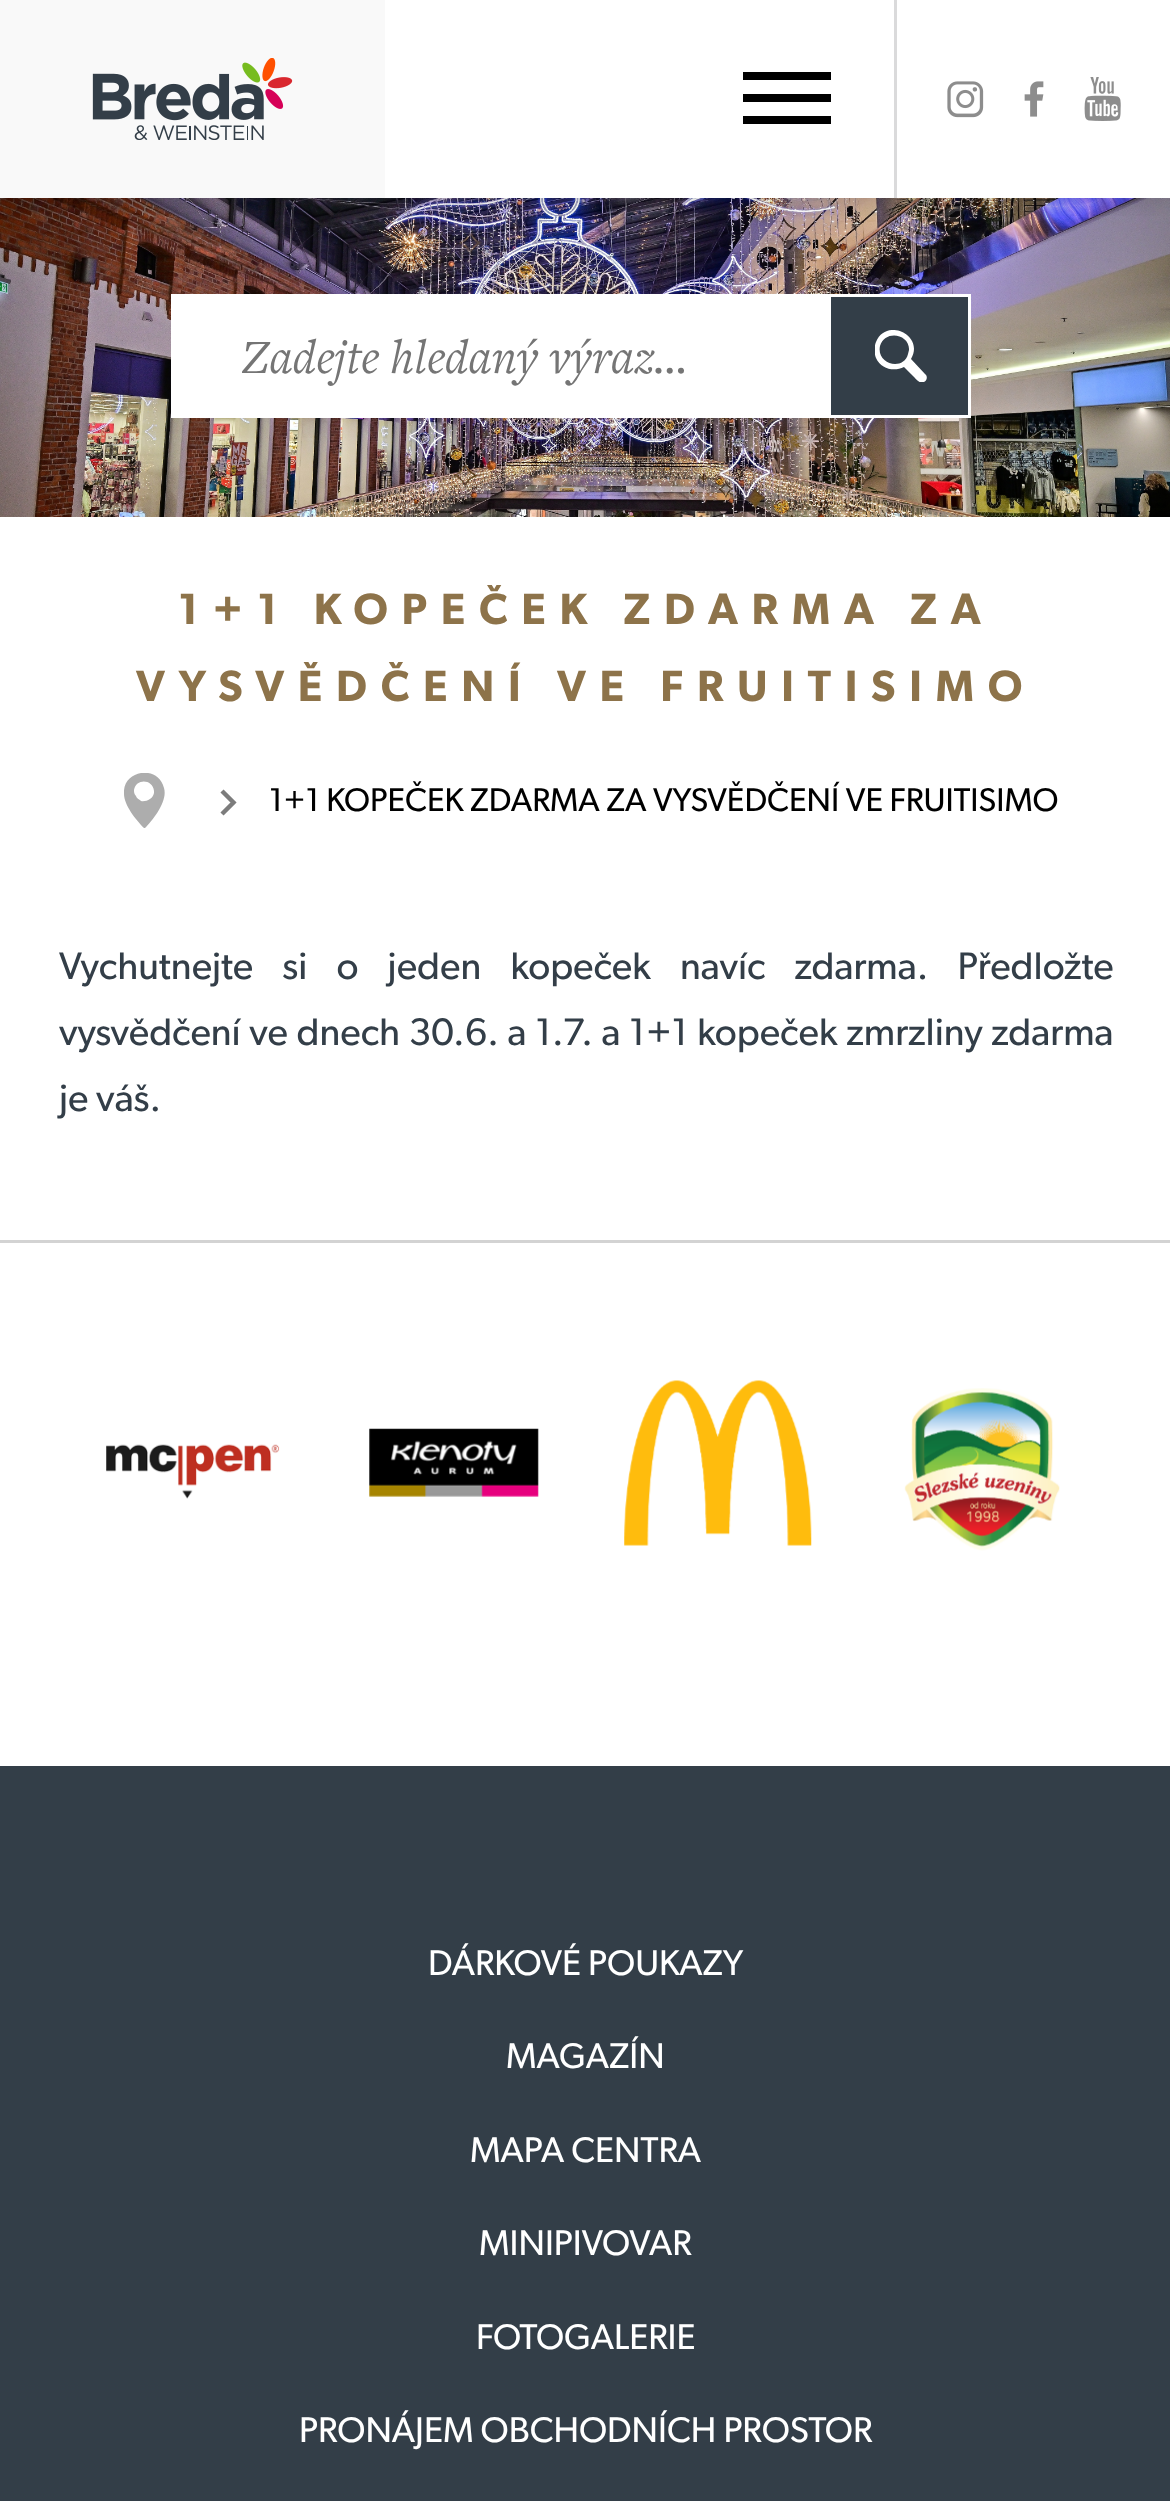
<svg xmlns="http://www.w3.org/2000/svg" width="1170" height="2501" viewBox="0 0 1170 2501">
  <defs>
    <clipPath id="clip1"><rect x="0" y="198" width="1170" height="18"/></clipPath>
    <filter id="blur1" x="-50%" y="-200%" width="200%" height="500%"><feGaussianBlur stdDeviation="14"/></filter>
    <clipPath id="clip2"><rect x="875" y="330" width="52" height="52"/></clipPath>
    <clipPath id="clip3"><rect x="124" y="773" width="41" height="55"/></clipPath>
  </defs>
  <rect width="100%" height="100%" fill="#ffffff"/>
  <image x="0" y="198" width="1170" height="319" href="img5.png"/>
  <g clip-path="url(#clip1)">
    <rect x="0" y="0" width="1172" height="198" fill="#000000" fill-opacity="0.2" filter="url(#blur1)"/>
  </g>
  <rect x="0" y="0" width="385" height="198" fill="#f9f9f9"/>
  <image x="92" y="58" width="201" height="82" href="img1.png"/>
  <rect x="743" y="94" width="88" height="8" fill="#000000"/>
  <rect x="743" y="72" width="88" height="8" fill="#000000"/>
  <rect x="743" y="116" width="88" height="8" fill="#000000"/>
  <rect x="894" y="0" width="3" height="198" fill="#dadadb"/>
  <image x="947" y="81" width="37" height="37" href="img2.png"/>
  <image x="1024" y="81" width="20" height="36" href="img3.png"/>
  <image x="1084" y="77" width="37" height="44" href="img4.png"/>
  <rect x="174" y="297" width="657" height="118" fill="#ffffff"/>
  <rect x="172.5" y="295.5" width="797" height="121" fill="none" stroke="#ffffff" stroke-width="3"/>
  <text x="242" y="373" font-family="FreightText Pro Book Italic" font-size="49.5" font-style="italic" fill="#757575">Zadejte hledaný výraz...</text>
  <rect x="831" y="297" width="137" height="118" fill="#333e48"/>
  <g clip-path="url(#clip2)">
    <path d="M925 374L911 359C925 335 886 317 876 342C874 347 874 353 876 358C881 369 894 372 904 367L913 376C916 379 919 384 924 382C927 381 928 376 925 374ZM908 354C904 371 876 365 880 346C885 329 910 334 909 350Z" fill="#ffffff"/>
  </g>
  <text x="178" y="624" font-family="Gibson" font-size="44" font-weight="600" letter-spacing="13.75" fill="#8d734a">1+1 KOPEČEK ZDARMA ZA</text>
  <text x="136" y="701" font-family="Gibson" font-size="44" font-weight="600" letter-spacing="13.75" fill="#8d734a">VYSVĚDČENÍ VE FRUITISIMO</text>
  <path d="M222 791L233.5 802.5L222 814" fill="none" stroke="#7c7c7c" stroke-width="4.4"/>
  <g clip-path="url(#clip3)">
    <path d="M164 788C158 764 122 770 124 794C124 805 136 820 144 828H145C153 820 168 801 164 788ZM154 793C153 799 146 802 141 801C139 799 137 799 136 796C134 794 134 792 134 790C136 778 153 779 154 791Z" fill="#adadad"/>
  </g>
  <text x="269" y="811" font-family="Gibson" font-size="33" fill="#000000">1+1 KOPEČEK ZDARMA ZA VYSVĚDČENÍ VE FRUITISIMO</text>
  <text x="59" y="979" word-spacing="21.5" font-family="Gibson" font-size="38.5" fill="#333e48">Vychutnejte si o jeden kopeček navíc zdarma. Předložte</text>
  <text x="59" y="1045" word-spacing="1" font-family="Gibson" font-size="38.5" fill="#333e48">vysvědčení ve dnech 30.6. a 1.7. a 1+1 kopeček zmrzliny zdarma</text>
  <text x="59" y="1111" font-family="Gibson" font-size="38.5" fill="#333e48">je váš.</text>
  <rect x="0" y="1240" width="1170" height="3" fill="#d3d3d3"/>
  <image x="106" y="1444" width="174" height="55" href="img6.png"/>
  <image x="369" y="1428" width="170" height="69" href="img7.png"/>
  <image x="624" y="1380" width="188" height="166" href="img8.png"/>
  <image x="904" y="1388" width="156" height="163" href="img9.png"/>
  <rect x="0" y="1766" width="1170" height="735" fill="#333e48"/>
  <text x="428" y="1975" font-family="Gibson" font-size="35.75" fill="#ffffff">DÁRKOVÉ POUKAZY</text>
  <text x="506" y="2068" font-family="Gibson" font-size="35.75" fill="#ffffff">MAGAZÍN</text>
  <text x="470" y="2162" font-family="Gibson" font-size="35.75" fill="#ffffff">MAPA CENTRA</text>
  <text x="479" y="2255" font-family="Gibson" font-size="35.75" fill="#ffffff">MINIPIVOVAR</text>
  <text x="476" y="2349" font-family="Gibson" font-size="35.75" fill="#ffffff">FOTOGALERIE</text>
  <text x="299" y="2442" font-family="Gibson" font-size="35.75" fill="#ffffff">PRONÁJEM OBCHODNÍCH PROSTOR</text>
</svg>
